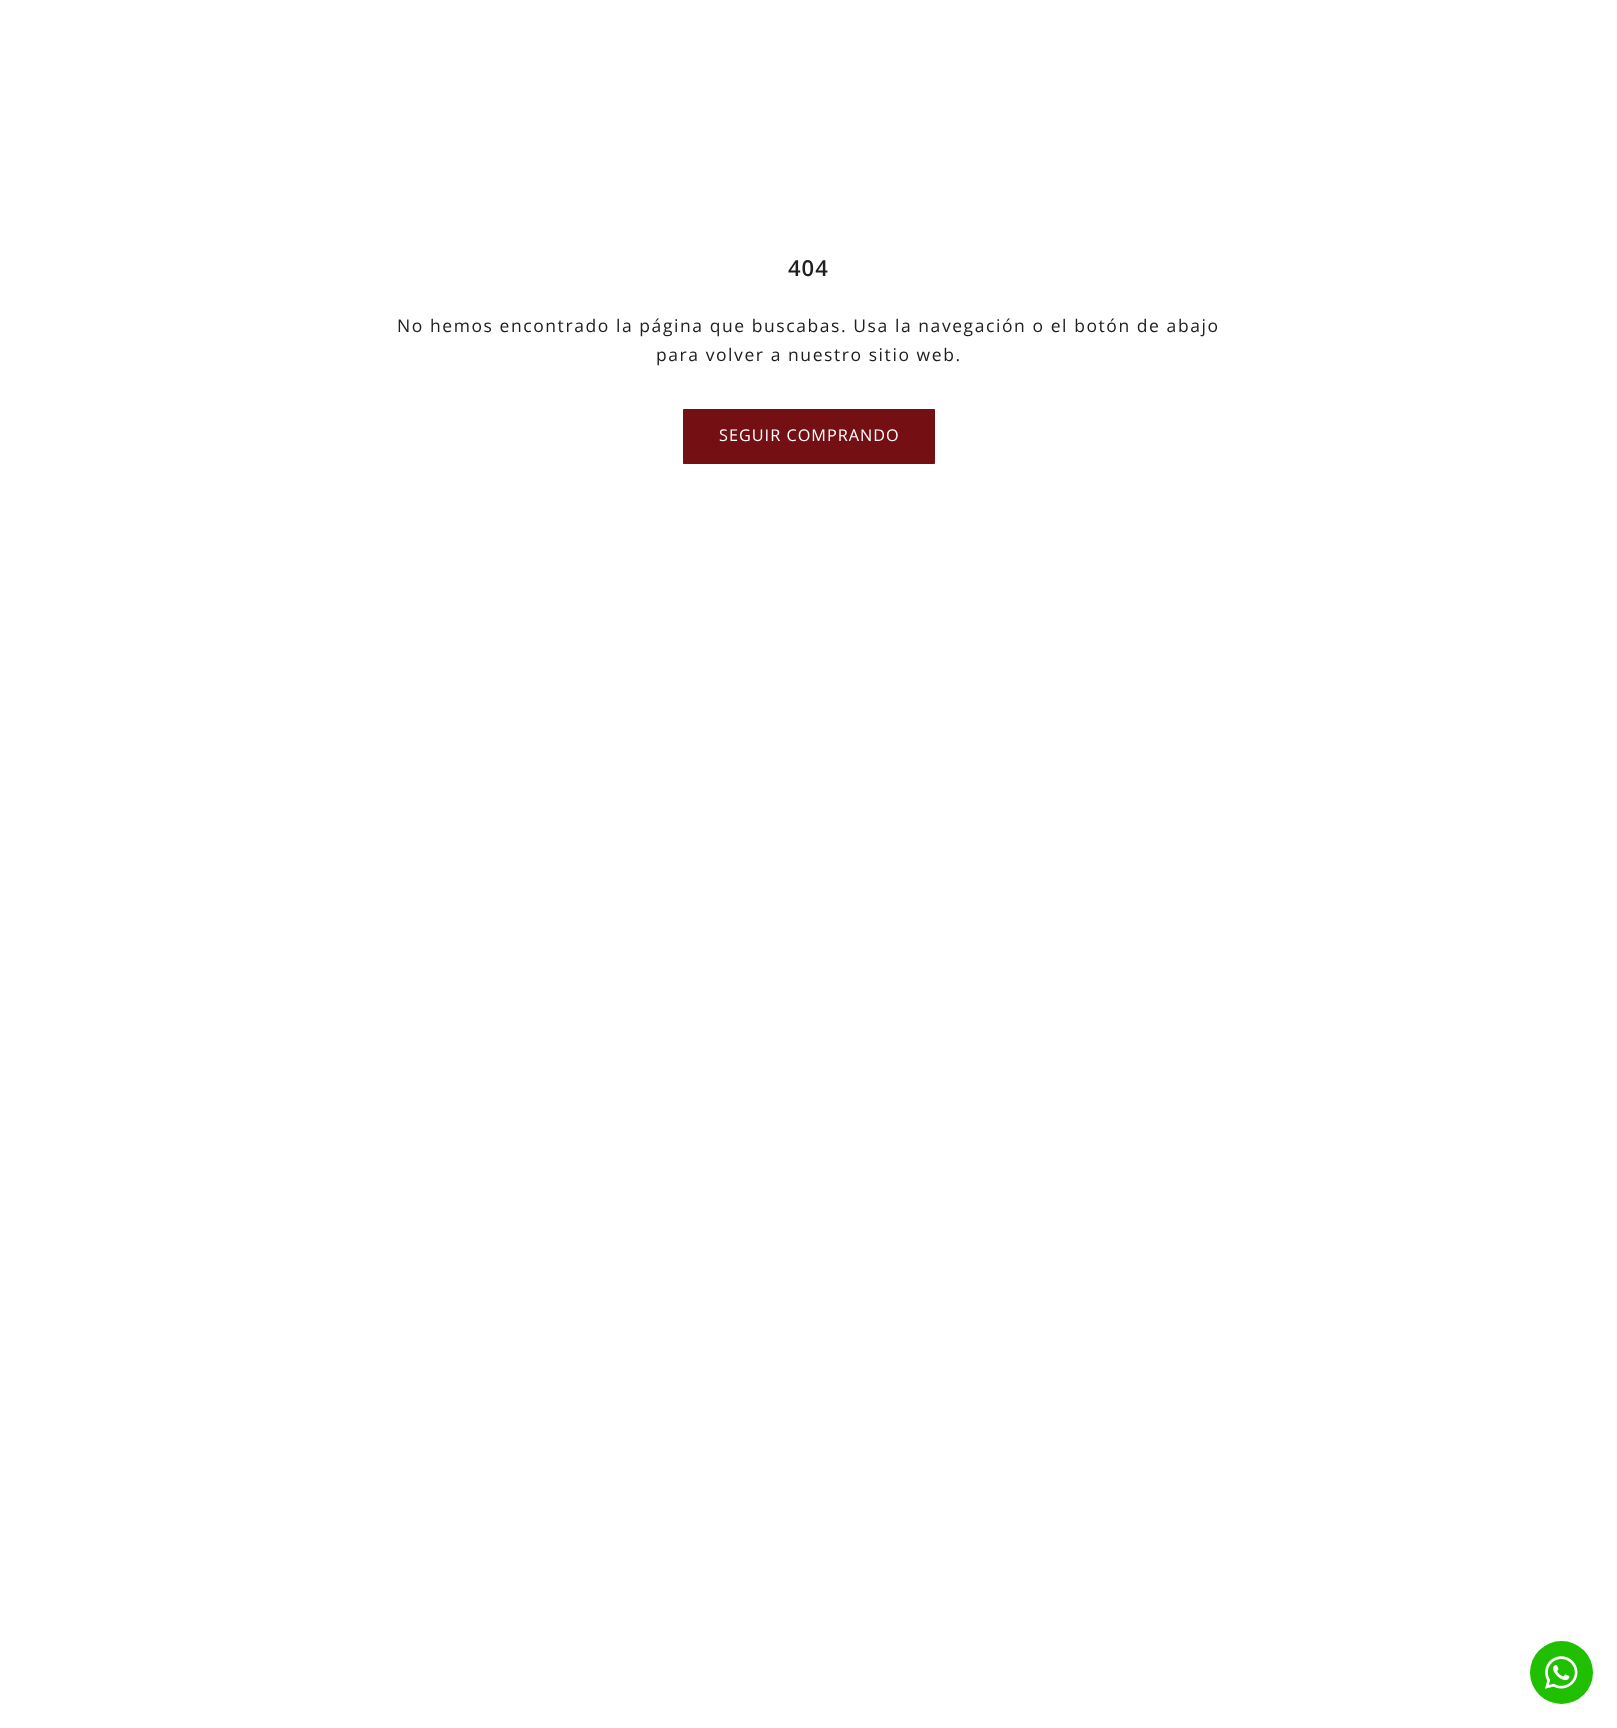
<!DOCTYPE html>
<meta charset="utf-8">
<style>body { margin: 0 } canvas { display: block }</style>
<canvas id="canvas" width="1617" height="1728"></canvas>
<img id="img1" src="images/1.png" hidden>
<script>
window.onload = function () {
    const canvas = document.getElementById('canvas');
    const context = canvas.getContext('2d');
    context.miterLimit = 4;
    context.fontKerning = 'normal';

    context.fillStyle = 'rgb(255, 255, 255)';
    context.fillRect(0, 0, 1617, 1728);
    context.fillStyle = 'rgb(116, 16, 19)';
    context.beginPath();
    context.rect(683.5, 409.5, 251, 54);
    context.fill();
    context.strokeStyle = 'rgb(116, 16, 19)';
    context.stroke();
    context.fillStyle = 'rgb(32, 191, 0)';
    context.beginPath();
    context.arc(1561.5, 1672.5, 31.5, 0, 2 * Math.PI);
    context.fill();
    context.drawImage(document.getElementById('img1'), 1545, 1656, 33, 33);
    context.letterSpacing = '1px';
    context.font = '600 22px Open Sans';
    context.fillStyle = 'rgb(32, 32, 32)';
    context.fillText('404', 788, 276);
    context.letterSpacing = '1.57px';
    context.font = '17.5px Open Sans';
    context.fillText('No hemos encontrado la página que buscabas. Usa la navegación o el botón de abajo', 397, 332);
    context.fillText('para volver a nuestro sitio web.', 656, 361);
    context.letterSpacing = '1px';
    context.font = '16.25px Open Sans';
    context.fillStyle = 'rgb(255, 255, 255)';
    context.fillText('SEGUIR COMPRANDO', 719, 441);
};
</script>
